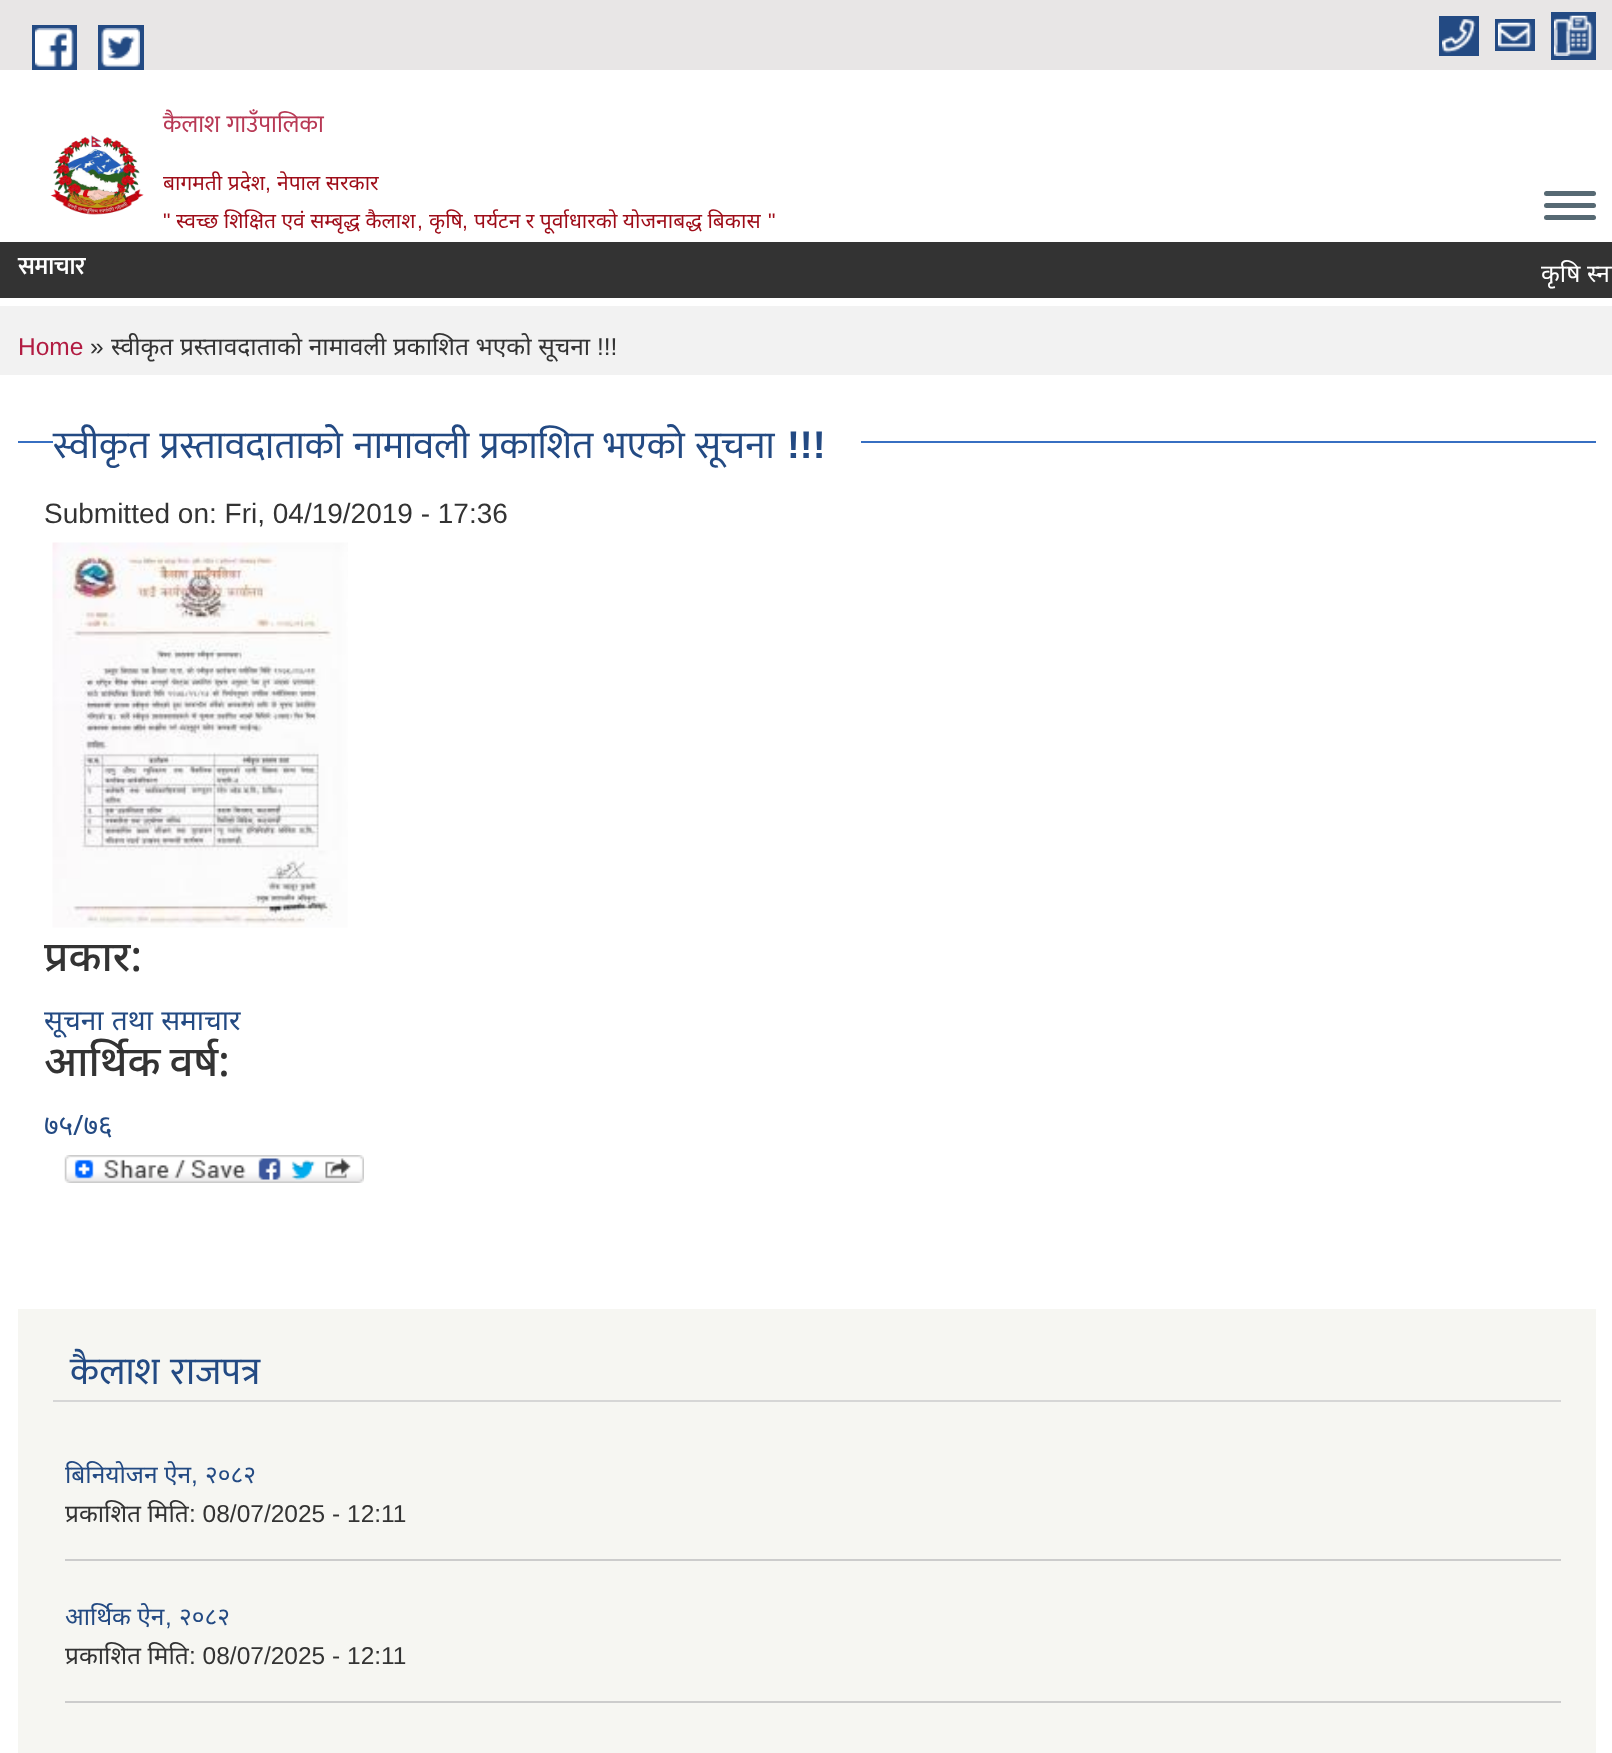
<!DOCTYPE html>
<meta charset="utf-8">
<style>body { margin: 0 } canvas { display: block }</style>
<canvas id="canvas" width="1612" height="1753"></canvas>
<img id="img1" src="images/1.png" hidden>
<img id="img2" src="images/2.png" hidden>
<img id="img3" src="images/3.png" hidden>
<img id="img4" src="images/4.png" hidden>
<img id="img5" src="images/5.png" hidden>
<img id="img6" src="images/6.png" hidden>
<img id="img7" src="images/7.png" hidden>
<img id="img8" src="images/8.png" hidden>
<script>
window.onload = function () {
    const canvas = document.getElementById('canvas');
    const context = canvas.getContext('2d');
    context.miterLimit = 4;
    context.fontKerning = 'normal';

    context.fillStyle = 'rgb(255, 255, 255)';
    context.fillRect(0, 0, 1612, 1753);
    context.fillStyle = 'rgb(232, 230, 230)';
    context.fillRect(0, 0, 1612, 70);
    context.fillStyle = 'rgb(35, 74, 131)';
    context.fillRect(32, 25, 45, 45);
    context.fillRect(98, 25, 46, 45);
    context.drawImage(document.getElementById('img1'), 35, 28, 39, 39);
    context.drawImage(document.getElementById('img2'), 101, 28, 39, 39);
    context.fillRect(1551, 12, 45, 48);
    context.fillRect(1439, 16, 40, 40);
    context.drawImage(document.getElementById('img3'), 1554, 15, 39, 41);
    context.drawImage(document.getElementById('img4'), 1442, 19, 34, 34);
    context.fillRect(1495, 19, 40, 32);
    context.drawImage(document.getElementById('img5'), 1498, 22, 34, 26);
    context.drawImage(document.getElementById('img6'), 50, 135, 94, 80);
    context.fillStyle = 'rgb(86, 105, 115)';
    context.beginPath();
    context.roundRect(1544, 191, 52, 5, 2.5);
    context.fill();
    context.beginPath();
    context.roundRect(1544, 203, 52, 5, 2.5);
    context.fill();
    context.beginPath();
    context.roundRect(1544, 215, 52, 5, 2.5);
    context.fill();
    context.fillStyle = 'rgb(51, 51, 51)';
    context.fillRect(0, 242, 1612, 56);
    context.fillStyle = 'rgb(242, 242, 242)';
    context.fillRect(0, 306, 1612, 69);
    context.fillStyle = 'rgb(55, 111, 194)';
    context.fillRect(18, 441, 1578, 2);
    context.fillStyle = 'rgb(255, 255, 255)';
    context.fillRect(53, 441, 808, 2);
    context.drawImage(document.getElementById('img7'), 52, 542, 296, 386);
    context.drawImage(document.getElementById('img8'), 64, 1155, 300, 28);
    context.fillStyle = 'rgb(246, 246, 242)';
    context.fillRect(18, 1309, 1578, 444);
    context.fillStyle = 'rgb(214, 214, 214)';
    context.fillRect(53, 1400, 1508, 2);
    context.fillStyle = 'rgb(204, 204, 204)';
    context.fillRect(65, 1559, 1496, 2);
    context.fillRect(65, 1701, 1496, 2);
    context.wordSpacing = '1px';
    context.font = '24.5px Mukta';
    context.fillStyle = 'rgb(184, 57, 85)';
    context.fillText('कैलाश गाउँपालिका', 163, 132);
    context.wordSpacing = '0px';
    context.font = '21px Noto Sans';
    context.fillStyle = 'rgb(158, 12, 24)';
    context.fillText('बागमती प्रदेश', 163, 190);
    context.font = '21px Liberation Sans';
    context.fillText(',', 265, 190);
    context.font = '21px Noto Sans';
    context.fillText('नेपाल सरकार', 277, 190);
    context.font = '21px Liberation Sans';
    context.fillText('"', 163, 228);
    context.font = '21px Noto Sans';
    context.fillText('स्वच्छ शिक्षित एवं सम्बृद्ध कैलाश', 176, 228);
    context.fillText('पर्यटन र पूर्वाधारको योजनाबद्ध बिकास', 474, 228);
    context.font = '21px Liberation Sans';
    context.fillText('"', 768, 228);
    context.fillText(',', 417, 228);
    context.font = '21px Noto Sans';
    context.fillText('कृषि', 429, 228);
    context.font = '21px Liberation Sans';
    context.fillText(',', 462, 228);
    context.font = 'bold 24.5px Mukta';
    context.fillStyle = 'rgb(255, 255, 255)';
    context.fillText('समाचार', 18, 274);
    context.font = '24.5px Noto Sans';
    context.fillText('कृषि', 1541, 282);
    context.fillText('स्ना', 1587, 282);
    context.font = '24.5px Liberation Sans';
    context.fillStyle = 'rgb(178, 28, 66)';
    context.fillText('Home', 18, 355);
    context.fillStyle = 'rgb(51, 51, 51)';
    context.fillText('»', 90, 355);
    context.wordSpacing = '0.25px';
    context.font = '24.5px Noto Sans';
    context.fillText('स्वीकृत प्रस्तावदाताको नामावली प्रकाशित भएको सूचना', 111, 355);
    context.wordSpacing = '0px';
    context.font = '24.5px Liberation Sans';
    context.fillText('!!!', 597, 355);
    context.wordSpacing = '1.75px';
    context.font = '38.5px Mukta';
    context.fillStyle = 'rgb(35, 74, 131)';
    context.fillText('स्वीकृत प्रस्तावदाताको नामावली प्रकाशित भएको सूचना', 53, 458);
    context.wordSpacing = '0px';
    context.font = 'bold 38.5px Liberation Sans';
    context.fillText('!!!', 787, 458);
    context.font = '28px Liberation Sans';
    context.fillStyle = 'rgb(51, 51, 51)';
    context.fillText('Submitted on: Fri, 04/19/2019 - 17:36', 44, 523);
    context.font = '500 42px Noto Sans';
    context.fillText('प्रकार:', 44, 971);
    context.wordSpacing = '1px';
    context.font = '28px Noto Sans';
    context.fillStyle = 'rgb(35, 74, 131)';
    context.fillText('सूचना तथा समाचार', 44, 1030);
    context.wordSpacing = '-2px';
    context.font = '500 42px Noto Sans';
    context.fillStyle = 'rgb(51, 51, 51)';
    context.fillText('आर्थिक वर्ष:', 44, 1076);
    context.wordSpacing = '0px';
    context.font = '28px Noto Sans';
    context.fillStyle = 'rgb(35, 74, 131)';
    context.fillText('७५/७६', 44, 1135);
    context.wordSpacing = '2px';
    context.font = '38.5px Mukta';
    context.fillText('कैलाश राजपत्र', 70, 1384);
    context.wordSpacing = '0px';
    context.font = '24.5px Noto Sans';
    context.fillText('बिनियोजन ऐन', 65, 1483);
    context.font = '24.5px Liberation Sans';
    context.fillText(',', 191, 1483);
    context.font = '24.5px Noto Sans';
    context.fillText('२०८२', 205, 1483);
    context.fillStyle = 'rgb(51, 51, 51)';
    context.fillText('प्रकाशित मिति', 65, 1522);
    context.font = '24.5px Liberation Sans';
    context.fillText(': 08/07/2025 - 12:11', 189, 1522);
    context.font = '24.5px Noto Sans';
    context.fillStyle = 'rgb(35, 74, 131)';
    context.fillText('आर्थिक ऐन', 65, 1625);
    context.font = '24.5px Liberation Sans';
    context.fillText(',', 165, 1625);
    context.font = '24.5px Noto Sans';
    context.fillText('२०८२', 179, 1625);
    context.fillStyle = 'rgb(51, 51, 51)';
    context.fillText('प्रकाशित मिति', 65, 1664);
    context.font = '24.5px Liberation Sans';
    context.fillText(': 08/07/2025 - 12:11', 189, 1664);
};
</script>
